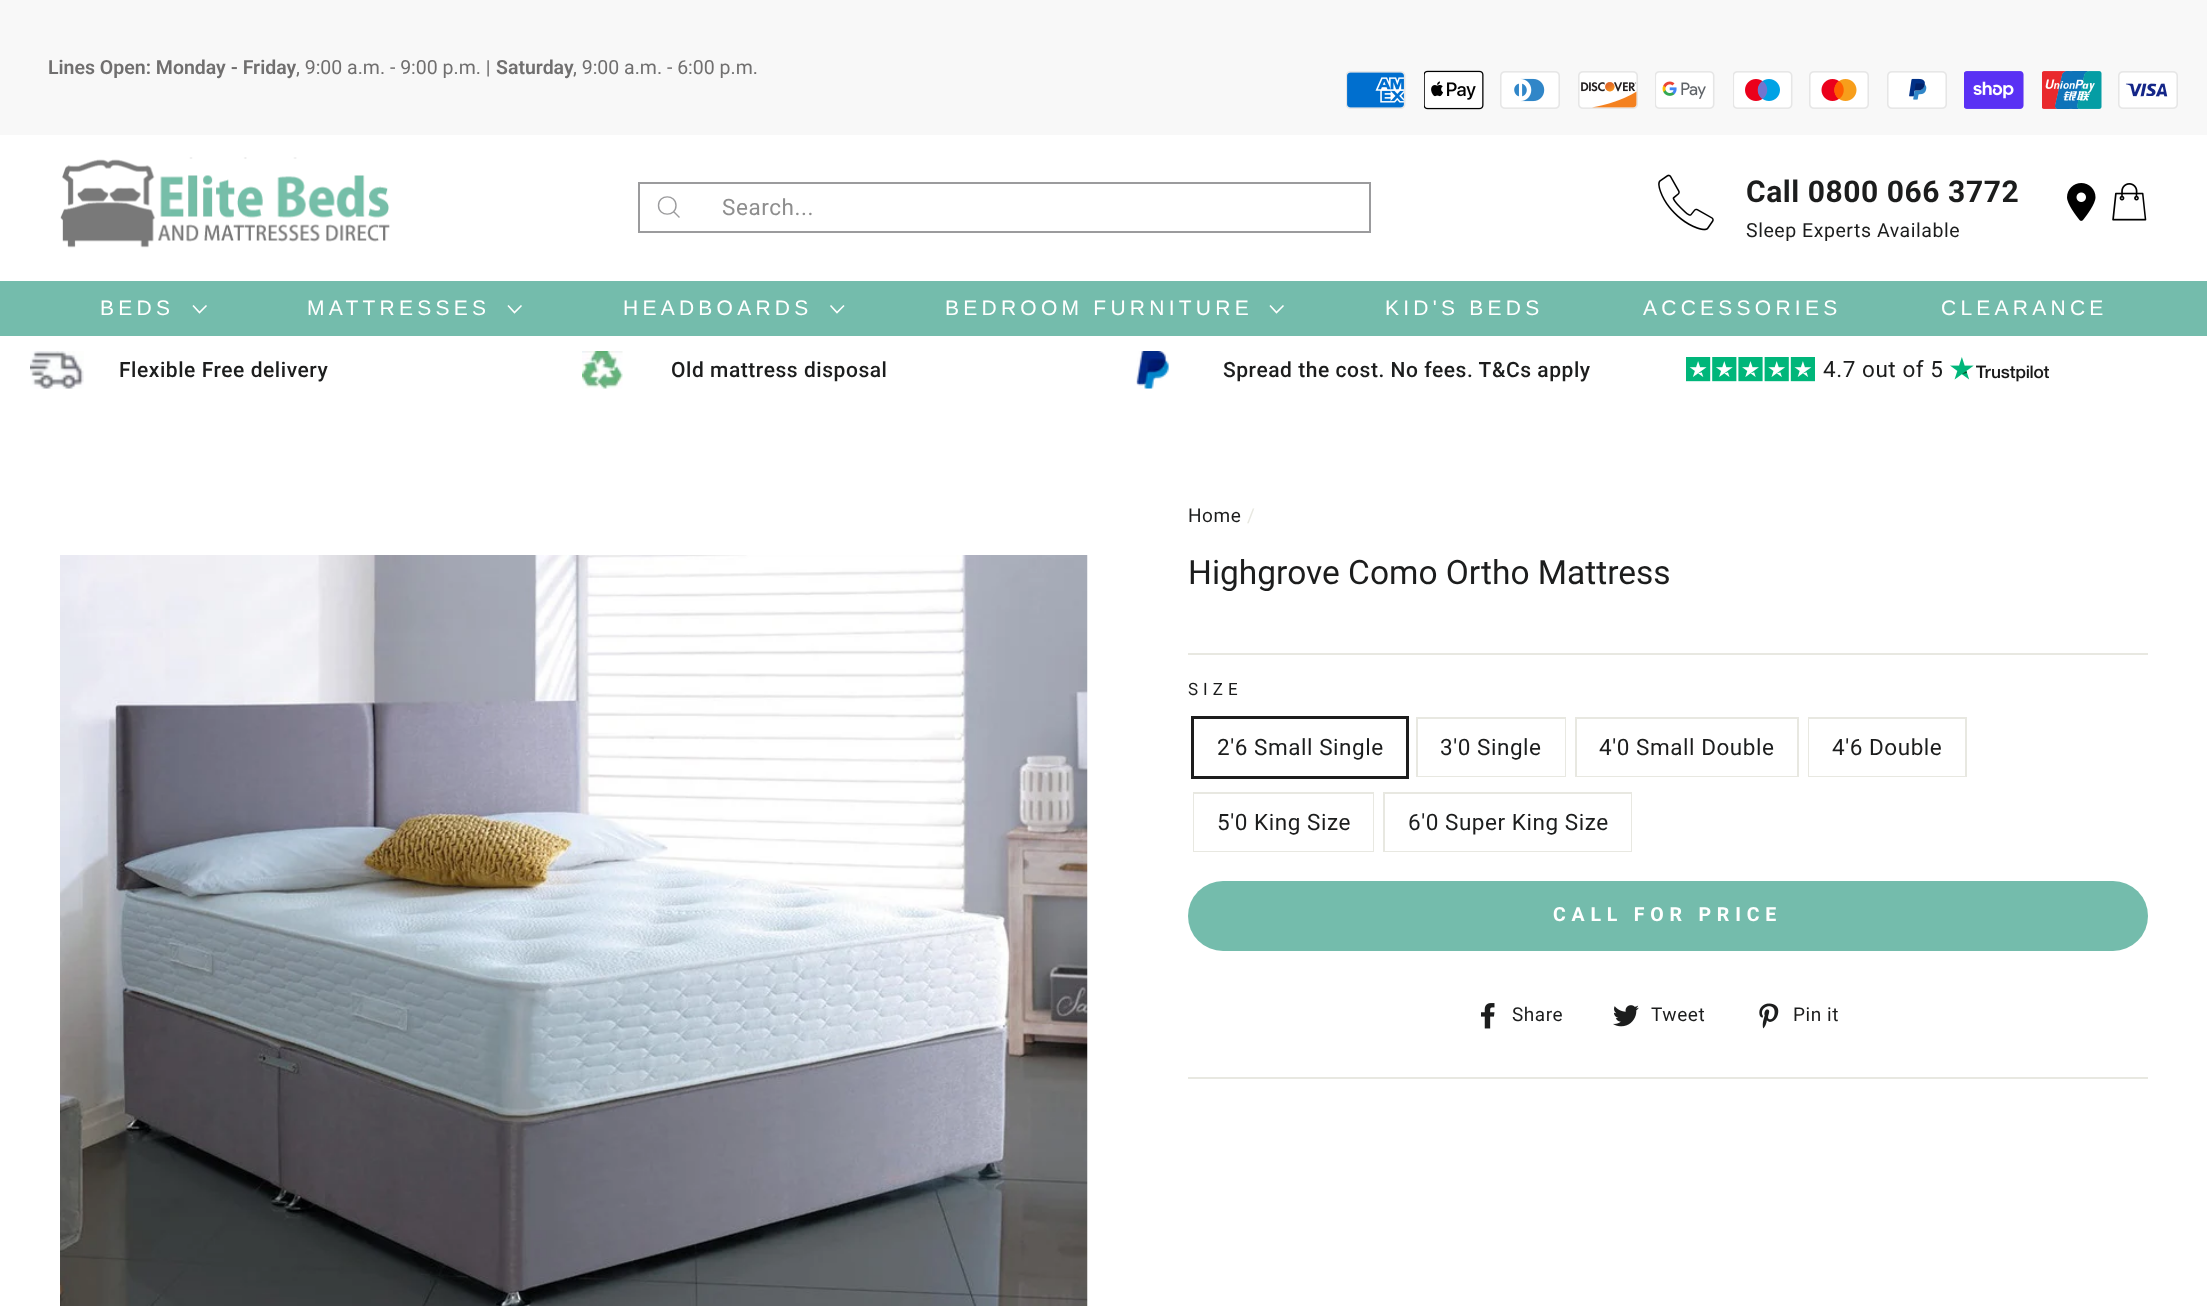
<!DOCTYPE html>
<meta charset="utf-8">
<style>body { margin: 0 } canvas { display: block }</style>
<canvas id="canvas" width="2207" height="1306"></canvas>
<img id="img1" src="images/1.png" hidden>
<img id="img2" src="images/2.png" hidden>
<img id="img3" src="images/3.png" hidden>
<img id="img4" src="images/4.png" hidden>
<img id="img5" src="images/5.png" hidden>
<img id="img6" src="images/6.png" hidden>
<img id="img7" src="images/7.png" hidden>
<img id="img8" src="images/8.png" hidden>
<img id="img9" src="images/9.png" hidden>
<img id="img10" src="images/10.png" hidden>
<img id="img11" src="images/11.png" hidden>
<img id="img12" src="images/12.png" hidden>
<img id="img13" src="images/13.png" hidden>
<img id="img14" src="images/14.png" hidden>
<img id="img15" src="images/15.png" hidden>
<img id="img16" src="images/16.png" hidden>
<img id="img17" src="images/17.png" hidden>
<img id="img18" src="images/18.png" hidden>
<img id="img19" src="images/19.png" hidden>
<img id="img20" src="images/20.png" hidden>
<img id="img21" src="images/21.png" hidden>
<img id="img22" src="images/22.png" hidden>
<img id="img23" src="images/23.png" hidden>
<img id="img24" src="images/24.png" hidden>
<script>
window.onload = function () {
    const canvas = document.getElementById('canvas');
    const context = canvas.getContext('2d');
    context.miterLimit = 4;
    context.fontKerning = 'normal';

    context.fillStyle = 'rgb(255, 255, 255)';
    context.fillRect(0, 0, 2207, 1306);
    context.fillStyle = 'rgb(248, 248, 248)';
    context.fillRect(0, 0, 2207, 135);
    context.drawImage(document.getElementById('img1'), 1346, 71, 60, 38);
    context.drawImage(document.getElementById('img2'), 1424, 70, 60, 40);
    context.drawImage(document.getElementById('img3'), 1500, 71, 60, 38);
    context.drawImage(document.getElementById('img4'), 1578, 71, 60, 38);
    context.drawImage(document.getElementById('img5'), 1655, 71, 60, 38);
    context.drawImage(document.getElementById('img6'), 1733, 71, 60, 38);
    context.drawImage(document.getElementById('img7'), 1809, 71, 60, 38);
    context.drawImage(document.getElementById('img8'), 1887, 71, 60, 38);
    context.drawImage(document.getElementById('img9'), 1964, 71, 60, 38);
    context.drawImage(document.getElementById('img10'), 2042, 71, 60, 38);
    context.drawImage(document.getElementById('img11'), 2118, 71, 60, 38);
    context.drawImage(document.getElementById('img12'), 60, 157, 330, 91);
    context.strokeStyle = 'rgb(155, 155, 157)';
    context.lineWidth = 2;
    context.strokeRect(639, 183, 731, 49);
    context.beginPath();
    context.moveTo(676, 205.5);
    context.bezierCurveTo(676, 217, 658.5, 217, 658.5, 205.5);
    context.bezierCurveTo(658.5, 194, 676, 194, 676, 205.5);
    context.closePath();
    context.moveTo(679.5, 217.5);
    context.lineTo(673.5, 211.5);
    context.lineWidth = 1.4;
    context.stroke();
    context.drawImage(document.getElementById('img13'), 1658, 174, 56, 57);
    context.drawImage(document.getElementById('img14'), 2067, 183, 29, 38);
    context.drawImage(document.getElementById('img15'), 2112, 183, 35, 38);
    context.fillStyle = 'rgb(116, 188, 172)';
    context.fillRect(0, 281, 2207, 55);
    context.beginPath();
    context.moveTo(193, 305.5);
    context.lineTo(199.5, 312.5);
    context.lineTo(206.5, 305.5);
    context.strokeStyle = 'rgb(255, 255, 255)';
    context.lineWidth = 1.6;
    context.stroke();
    context.beginPath();
    context.moveTo(508, 305.5);
    context.lineTo(514.5, 312.5);
    context.lineTo(521.5, 305.5);
    context.stroke();
    context.beginPath();
    context.moveTo(830.5, 305.5);
    context.lineTo(837, 312.5);
    context.lineTo(844, 305.5);
    context.stroke();
    context.beginPath();
    context.moveTo(1270, 305.5);
    context.lineTo(1276.5, 312.5);
    context.lineTo(1283.5, 305.5);
    context.stroke();
    context.drawImage(document.getElementById('img16'), 30, 351, 54, 38);
    context.drawImage(document.getElementById('img17'), 582, 351, 41, 38);
    context.drawImage(document.getElementById('img18'), 1136, 351, 33, 38);
    context.drawImage(document.getElementById('img19'), 1686, 357, 129, 25);
    context.drawImage(document.getElementById('img20'), 1950, 357, 99, 25);
    context.drawImage(document.getElementById('img21'), 60, 555, 1028, 751);
    context.fillStyle = 'rgb(232, 232, 225)';
    context.fillRect(1188, 653, 960, 2);
    context.strokeStyle = 'rgb(28, 29, 29)';
    context.lineWidth = 3;
    context.strokeRect(1192.5, 717.5, 215, 60);
    context.strokeStyle = 'rgb(232, 232, 225)';
    context.lineWidth = 2;
    context.strokeRect(1417, 718, 148, 58);
    context.fillStyle = 'rgb(255, 255, 255)';
    context.fillRect(1418, 719, 147, 57);
    context.strokeRect(1576, 718, 222, 58);
    context.fillRect(1577, 775, 220, 1);
    context.strokeRect(1809, 718, 157, 58);
    context.fillRect(1809, 719, 156, 57);
    context.strokeRect(1194, 793, 179, 58);
    context.fillRect(1194, 794, 179, 57);
    context.strokeRect(1384, 793, 247, 58);
    context.fillRect(1385, 794, 246, 57);
    context.fillStyle = 'rgb(116, 188, 172)';
    context.beginPath();
    context.roundRect(1188, 881, 960, 70, 35);
    context.fill();
    context.drawImage(document.getElementById('img22'), 1481, 1003, 14, 26);
    context.drawImage(document.getElementById('img23'), 1613, 1005, 26, 22);
    context.drawImage(document.getElementById('img24'), 1759, 1003, 20, 26);
    context.fillStyle = 'rgb(232, 232, 225)';
    context.fillRect(1188, 1077, 960, 2);
    context.font = '600 19.5px Roboto';
    context.fillStyle = 'rgb(112, 111, 111)';
    context.fillText('Lines Open: Monday - Friday', 48, 74);
    context.font = '19.5px Roboto';
    context.fillText(', 9:00 a.m. - 9:00 p.m. |', 296, 74);
    context.font = '600 19.5px Roboto';
    context.fillText('Saturday', 496, 74);
    context.font = '19.5px Roboto';
    context.fillText(', 9:00 a.m. - 6:00 p.m.', 573, 74);
    context.letterSpacing = '0.55px';
    context.font = '22.5px Roboto';
    context.fillStyle = 'rgb(142, 142, 142)';
    context.fillText('Search...', 722, 215);
    context.font = 'bold 30px Roboto';
    context.fillStyle = 'rgb(28, 29, 29)';
    context.fillText('Call 0800 066 3772', 1746, 202);
    context.font = '19.5px Roboto';
    context.fillText('Sleep Experts Available', 1746, 237);
    context.letterSpacing = '4.25px';
    context.font = '21px Liberation Sans';
    context.fillStyle = 'rgb(255, 255, 255)';
    context.fillText('BEDS', 100, 315);
    context.fillText('MATTRESSES', 307, 315);
    context.fillText('HEADBOARDS', 623, 315);
    context.fillText('BEDROOM FURNITURE', 945, 315);
    context.fillText('KID\'S BEDS', 1385, 315);
    context.fillText('ACCESSORIES', 1643, 315);
    context.fillText('CLEARANCE', 1941, 315);
    context.letterSpacing = '0.55px';
    context.font = '500 21px Roboto';
    context.fillStyle = 'rgb(28, 29, 29)';
    context.fillText('Flexible Free delivery', 119, 377);
    context.fillText('Old mattress disposal', 671, 377);
    context.fillText('Spread the cost. No fees. T&Cs apply', 1223, 377);
    context.font = '22.5px Roboto';
    context.fillText('4.7 out of 5', 1823, 377);
    context.font = '19px Roboto';
    context.fillText('Home', 1188, 522);
    context.fillStyle = 'rgb(232, 232, 225)';
    context.fillText('/', 1247, 522);
    context.letterSpacing = '0px';
    context.font = '33.5px Roboto';
    context.fillStyle = 'rgb(28, 29, 29)';
    context.fillText('Highgrove Como Ortho Mattress', 1188, 584);
    context.letterSpacing = '5px';
    context.font = '17px Roboto';
    context.fillText('SIZE', 1188, 695);
    context.letterSpacing = '0.55px';
    context.font = '22.5px Roboto';
    context.fillText('2\'6 Small Single', 1217, 755);
    context.fillText('3\'0 Single', 1440, 755);
    context.fillText('4\'0 Small Double', 1599, 755);
    context.fillText('4\'6 Double', 1832, 755);
    context.fillText('5\'0 King Size', 1217, 830);
    context.fillText('6\'0 Super King Size', 1408, 830);
    context.letterSpacing = '5.8px';
    context.font = 'bold 19.5px Roboto';
    context.fillStyle = 'rgb(255, 255, 255)';
    context.fillText('CALL FOR PRICE', 1553, 921);
    context.letterSpacing = '0.55px';
    context.font = '19px Roboto';
    context.fillStyle = 'rgb(28, 29, 29)';
    context.fillText('Share', 1512, 1021);
    context.fillText('Tweet', 1651, 1021);
    context.fillText('Pin it', 1793, 1021);
};
</script>
